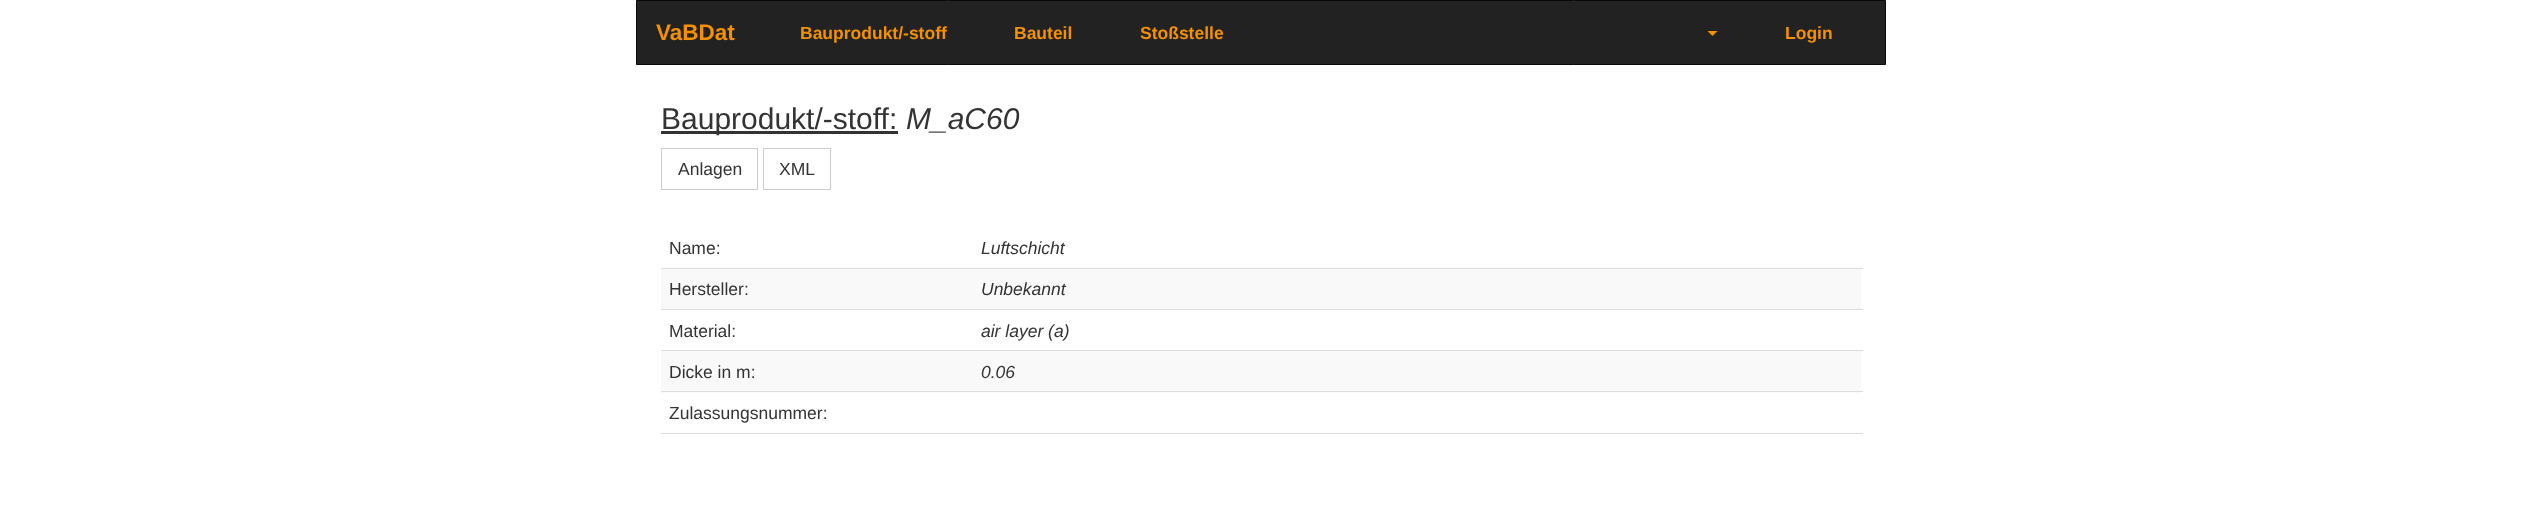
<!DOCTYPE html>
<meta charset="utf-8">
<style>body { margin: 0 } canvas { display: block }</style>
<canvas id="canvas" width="2522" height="511"></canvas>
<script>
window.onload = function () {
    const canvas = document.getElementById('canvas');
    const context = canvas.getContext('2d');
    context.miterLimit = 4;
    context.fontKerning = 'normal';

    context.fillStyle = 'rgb(255, 255, 255)';
    context.fillRect(0, 0, 2522, 511);
    context.fillStyle = 'rgb(34, 34, 34)';
    context.beginPath();
    context.rect(636.5, 0.5, 1249, 64);
    context.fill();
    context.strokeStyle = 'rgb(8, 8, 8)';
    context.stroke();
    context.fillStyle = 'rgb(243, 145, 0)';
    context.beginPath();
    context.moveTo(1707.5, 31);
    context.lineTo(1717.5, 31);
    context.lineTo(1712.5, 36);
    context.closePath();
    context.fill();
    context.fillStyle = 'rgb(51, 51, 51)';
    context.fillRect(661, 131, 237, 3);
    context.strokeStyle = 'rgb(204, 204, 204)';
    context.strokeRect(661.5, 148.5, 96, 41);
    context.strokeRect(763.5, 148.5, 67, 41);
    context.fillStyle = 'rgb(221, 221, 221)';
    context.fillRect(661, 268, 1202, 1);
    context.fillStyle = 'rgb(249, 249, 249)';
    context.fillRect(661, 269, 1200, 40);
    context.fillStyle = 'rgb(221, 221, 221)';
    context.fillRect(661, 309, 1202, 1);
    context.fillRect(661, 350, 1202, 1);
    context.fillStyle = 'rgb(249, 249, 249)';
    context.fillRect(661, 351, 1200, 42);
    context.fillStyle = 'rgb(221, 221, 221)';
    context.fillRect(661, 391, 1202, 1);
    context.fillRect(661, 433, 1202, 1);
    context.font = 'bold 22.5px Liberation Sans';
    context.fillStyle = 'rgb(243, 145, 0)';
    context.fillText('VaBDat', 656, 40);
    context.font = 'bold 17.5px Liberation Sans';
    context.fillText('Bauprodukt/-stoff', 800, 39);
    context.fillText('Bauteil', 1014, 39);
    context.fillText('Stoßstelle', 1140, 39);
    context.fillText('Login', 1785, 39);
    context.font = '30px Liberation Sans';
    context.fillStyle = 'rgb(51, 51, 51)';
    context.fillText('Bauprodukt/-stoff:', 661, 129);
    context.font = 'italic 30px Liberation Sans';
    context.fillText('M_aC60', 906, 129);
    context.font = '17.5px Liberation Sans';
    context.fillText('Anlagen', 678, 175);
    context.fillText('XML', 779, 175);
    context.fillText('Name:', 669, 254);
    context.font = 'italic 17.5px Liberation Sans';
    context.fillText('Luftschicht', 981, 254);
    context.font = '17.5px Liberation Sans';
    context.fillText('Hersteller:', 669, 295);
    context.font = 'italic 17.5px Liberation Sans';
    context.fillText('Unbekannt', 981, 295);
    context.font = '17.5px Liberation Sans';
    context.fillText('Material:', 669, 337);
    context.font = 'italic 17.5px Liberation Sans';
    context.fillText('air layer (a)', 981, 337);
    context.font = '17.5px Liberation Sans';
    context.fillText('Dicke in m:', 669, 378);
    context.font = 'italic 17.5px Liberation Sans';
    context.fillText('0.06', 981, 378);
    context.font = '17.5px Liberation Sans';
    context.fillText('Zulassungsnummer:', 669, 419);
};
</script>
